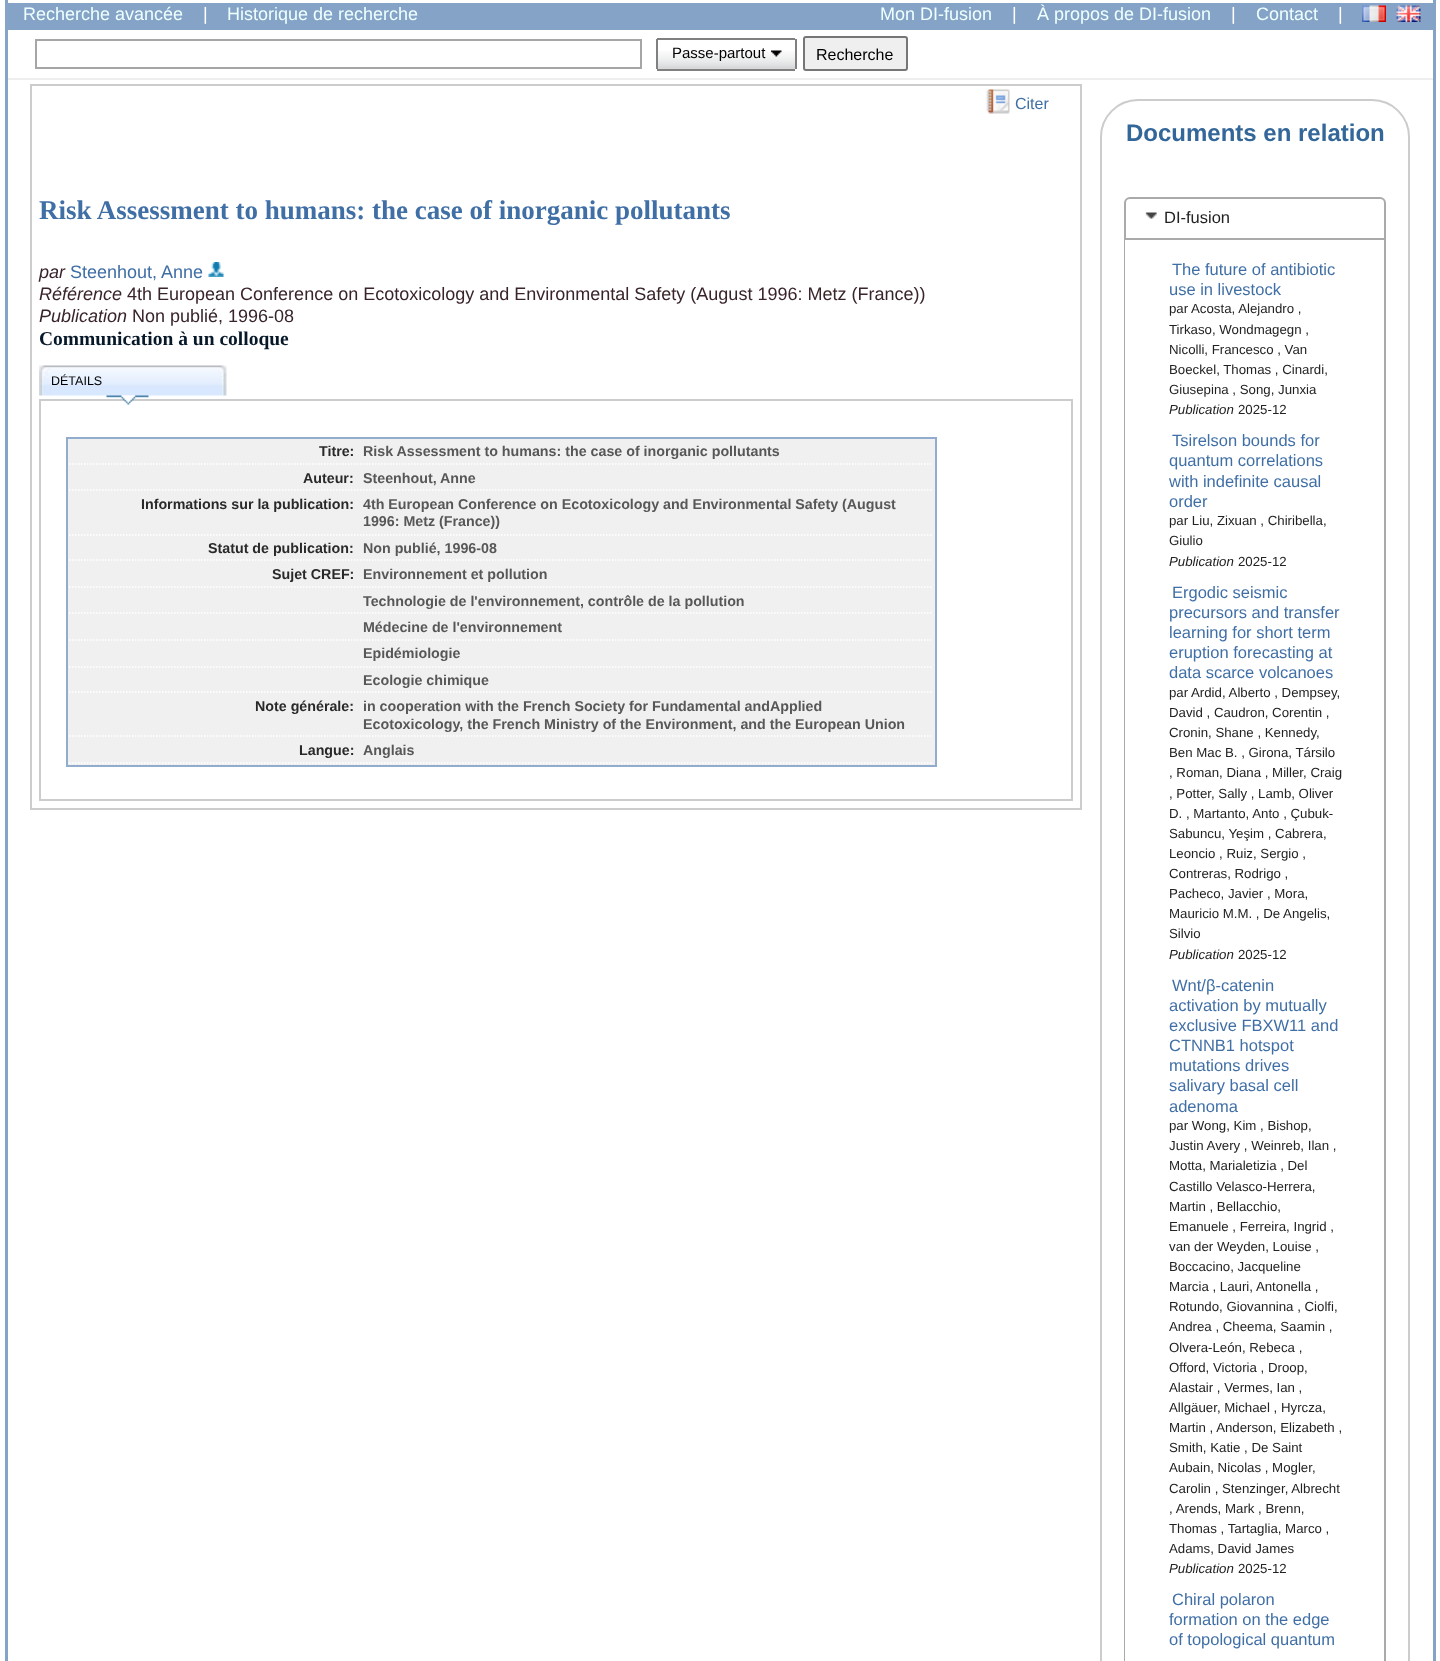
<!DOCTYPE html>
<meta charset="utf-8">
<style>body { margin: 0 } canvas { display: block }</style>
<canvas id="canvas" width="1440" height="1661"></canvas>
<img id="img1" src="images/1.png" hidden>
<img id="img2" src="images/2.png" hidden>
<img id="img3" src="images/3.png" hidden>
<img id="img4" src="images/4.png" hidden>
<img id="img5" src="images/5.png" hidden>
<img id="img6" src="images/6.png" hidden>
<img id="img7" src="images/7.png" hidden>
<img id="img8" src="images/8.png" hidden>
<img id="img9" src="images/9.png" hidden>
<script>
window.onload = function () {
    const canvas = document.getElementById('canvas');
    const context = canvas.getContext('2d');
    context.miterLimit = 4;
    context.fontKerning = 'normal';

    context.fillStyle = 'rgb(255, 255, 255)';
    context.fillRect(0, 0, 1440, 1661);
    context.fillStyle = 'rgb(133, 163, 198)';
    context.fillRect(5, 0, 1431, 1661);
    context.fillStyle = 'rgb(255, 255, 255)';
    context.fillRect(8, 0, 1425, 1661);
    context.fillStyle = 'rgb(133, 163, 198)';
    context.fillRect(8, 3, 1425, 27);
    context.drawImage(document.getElementById('img1'), 1362, 5, 24, 17);
    context.drawImage(document.getElementById('img2'), 1396, 5, 25, 17);
    context.strokeStyle = 'rgb(166, 166, 166)';
    context.lineWidth = 2;
    context.strokeRect(36, 40, 605, 28);
    context.drawImage(document.getElementById('img3'), 658, 51, 137, 18);
    context.fillStyle = 'rgb(128, 128, 128)';
    context.fillRect(657, 38, 138, 2);
    context.fillRect(657, 69, 138, 2);
    context.fillRect(795, 39, 2, 30);
    context.fillRect(656, 39, 2, 30);
    context.drawImage(document.getElementById('img4'), 771, 50, 11, 7);
    context.fillStyle = 'rgb(239, 239, 239)';
    context.beginPath();
    context.roundRect(804, 37, 103, 33, 2);
    context.fill();
    context.strokeStyle = 'rgb(118, 118, 118)';
    context.stroke();
    context.fillStyle = 'rgb(238, 238, 238)';
    context.fillRect(8, 78, 1425, 2);
    context.strokeStyle = 'rgb(204, 204, 204)';
    context.strokeRect(31, 85, 1050, 724);
    context.drawImage(document.getElementById('img5'), 985, 89, 25, 25);
    context.drawImage(document.getElementById('img6'), 208, 262, 16, 15);
    context.drawImage(document.getElementById('img7'), 39, 365, 188, 31);
    context.strokeRect(40, 400, 1032, 400);
    context.drawImage(document.getElementById('img8'), 106, 395, 43, 10);
    context.fillStyle = 'rgb(240, 240, 240)';
    context.fillRect(68, 439, 867, 326);
    context.fillStyle = 'rgb(145, 172, 204)';
    context.fillRect(66, 437, 870, 2);
    context.fillRect(935, 437, 2, 330);
    context.fillRect(66, 765, 870, 2);
    context.fillRect(66, 437, 2, 330);
    context.beginPath();
    context.moveTo(69, 464);
    context.lineTo(933, 464);
    context.strokeStyle = 'rgb(255, 255, 255)';
    context.lineWidth = 1.5;
    context.setLineDash([1.5, 1.5]);
    context.stroke();
    context.beginPath();
    context.moveTo(69, 490);
    context.lineTo(933, 490);
    context.stroke();
    context.beginPath();
    context.moveTo(69, 535);
    context.lineTo(933, 535);
    context.stroke();
    context.beginPath();
    context.moveTo(69, 560);
    context.lineTo(933, 560);
    context.stroke();
    context.beginPath();
    context.moveTo(69, 587);
    context.lineTo(933, 587);
    context.stroke();
    context.beginPath();
    context.moveTo(69, 613);
    context.lineTo(933, 613);
    context.stroke();
    context.beginPath();
    context.moveTo(69, 640);
    context.lineTo(933, 640);
    context.stroke();
    context.beginPath();
    context.moveTo(69, 667);
    context.lineTo(933, 667);
    context.stroke();
    context.beginPath();
    context.moveTo(69, 692);
    context.lineTo(933, 692);
    context.stroke();
    context.beginPath();
    context.moveTo(69, 736);
    context.lineTo(933, 736);
    context.stroke();
    context.beginPath();
    context.moveTo(69, 763);
    context.lineTo(933, 763);
    context.stroke();
    context.beginPath();
    context.roundRect(1101, 100, 308, 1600, 37);
    context.strokeStyle = 'rgb(204, 204, 204)';
    context.lineWidth = 2;
    context.setLineDash([]);
    context.stroke();
    context.beginPath();
    context.roundRect(1125, 198, 260, 41, [5, 5, 0, 0]);
    context.strokeStyle = 'rgb(170, 170, 170)';
    context.stroke();
    context.drawImage(document.getElementById('img9'), 1145, 212, 12, 7);
    context.fillStyle = 'rgb(170, 170, 170)';
    context.beginPath();
    context.moveTo(1124, 240);
    context.lineTo(1386, 240);
    context.lineTo(1386, 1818);
    context.bezierCurveTo(1386, 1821, 1383, 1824, 1380, 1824);
    context.lineTo(1130, 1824);
    context.bezierCurveTo(1126, 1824, 1124, 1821, 1124, 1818);
    context.closePath();
    context.moveTo(1125, 240);
    context.lineTo(1384, 240);
    context.lineTo(1384, 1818);
    context.bezierCurveTo(1384, 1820, 1382, 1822, 1380, 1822);
    context.lineTo(1130, 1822);
    context.bezierCurveTo(1127, 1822, 1125, 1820, 1125, 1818);
    context.closePath();
    context.fill('evenodd');
    context.font = '18px Liberation Sans';
    context.fillStyle = 'rgb(238, 255, 255)';
    context.fillText('Recherche avancée', 23, 20);
    context.fillStyle = 'rgb(255, 255, 255)';
    context.fillText('|', 203, 20);
    context.fillStyle = 'rgb(238, 255, 255)';
    context.fillText('Historique de recherche', 227, 20);
    context.fillText('Mon DI-fusion', 880, 20);
    context.fillStyle = 'rgb(255, 255, 255)';
    context.fillText('|', 1012, 20);
    context.fillStyle = 'rgb(238, 255, 255)';
    context.fillText('À propos de DI-fusion', 1037, 20);
    context.fillStyle = 'rgb(255, 255, 255)';
    context.fillText('|', 1231, 20);
    context.fillStyle = 'rgb(238, 255, 255)';
    context.fillText('Contact', 1256, 20);
    context.fillStyle = 'rgb(255, 255, 255)';
    context.fillText('|', 1338, 20);
    context.font = '15px Liberation Sans';
    context.fillStyle = 'rgb(0, 0, 0)';
    context.fillText('Passe-partout', 672, 58);
    context.font = '16px Liberation Sans';
    context.fillText('Recherche', 816, 60);
    context.fillStyle = 'rgb(64, 111, 166)';
    context.fillText('Citer', 1015, 109);
    context.font = 'bold 27px Liberation Serif';
    context.fillText('Risk Assessment to humans: the case of inorganic pollutants', 39, 219);
    context.font = 'italic 18px Liberation Sans';
    context.fillStyle = 'rgb(57, 37, 41)';
    context.fillText('par', 39, 278);
    context.font = '18px Liberation Sans';
    context.fillStyle = 'rgb(64, 111, 166)';
    context.fillText('Steenhout, Anne', 70, 278);
    context.font = 'italic 18px Liberation Sans';
    context.fillStyle = 'rgb(57, 37, 41)';
    context.fillText('Référence', 39, 300);
    context.font = '18px Liberation Sans';
    context.fillText('4th European Conference on Ecotoxicology and Environmental Safety (August 1996: Metz (France))', 127, 300);
    context.font = 'italic 18px Liberation Sans';
    context.fillText('Publication', 39, 322);
    context.font = '18px Liberation Sans';
    context.fillText('Non publié, 1996-08', 132, 322);
    context.font = 'bold 19.5px Liberation Serif';
    context.fillStyle = 'rgb(7, 24, 41)';
    context.fillText('Communication à un colloque', 39, 345);
    context.font = '12.5px Liberation Sans';
    context.fillStyle = 'rgb(0, 0, 0)';
    context.fillText('DÉTAILS', 51, 385);
    context.font = 'bold 14.25px Liberation Sans';
    context.fillStyle = 'rgb(41, 41, 41)';
    context.fillText('Titre:', 319, 456);
    context.fillStyle = 'rgb(87, 87, 87)';
    context.fillText('Risk Assessment to humans: the case of inorganic pollutants', 363, 456);
    context.fillStyle = 'rgb(41, 41, 41)';
    context.fillText('Auteur:', 303, 483);
    context.fillStyle = 'rgb(87, 87, 87)';
    context.fillText('Steenhout, Anne', 363, 483);
    context.fillStyle = 'rgb(41, 41, 41)';
    context.fillText('Informations sur la publication:', 141, 509);
    context.fillStyle = 'rgb(87, 87, 87)';
    context.fillText('4th European Conference on Ecotoxicology and Environmental Safety (August', 363, 509);
    context.fillText('1996: Metz (France))', 363, 526);
    context.fillStyle = 'rgb(41, 41, 41)';
    context.fillText('Statut de publication:', 208, 553);
    context.fillStyle = 'rgb(87, 87, 87)';
    context.fillText('Non publié, 1996-08', 363, 553);
    context.fillStyle = 'rgb(41, 41, 41)';
    context.fillText('Sujet CREF:', 272, 579);
    context.fillStyle = 'rgb(87, 87, 87)';
    context.fillText('Environnement et pollution', 363, 579);
    context.fillText('Technologie de l\'environnement, contrôle de la pollution', 363, 606);
    context.fillText('Médecine de l\'environnement', 363, 632);
    context.fillText('Epidémiologie', 363, 658);
    context.fillText('Ecologie chimique', 363, 685);
    context.fillStyle = 'rgb(41, 41, 41)';
    context.fillText('Note générale:', 255, 711);
    context.fillStyle = 'rgb(87, 87, 87)';
    context.fillText('in cooperation with the French Society for Fundamental andApplied', 363, 711);
    context.fillText('Ecotoxicology, the French Ministry of the Environment, and the European Union', 363, 729);
    context.fillStyle = 'rgb(41, 41, 41)';
    context.fillText('Langue:', 299, 755);
    context.fillStyle = 'rgb(87, 87, 87)';
    context.fillText('Anglais', 363, 755);
    context.font = 'bold 24px Liberation Sans';
    context.fillStyle = 'rgb(51, 102, 153)';
    context.fillText('Documents en relation', 1126, 141);
    context.font = '16.5px Liberation Sans';
    context.fillStyle = 'rgb(34, 34, 34)';
    context.fillText('DI-fusion', 1164, 223);
    context.fillStyle = 'rgb(64, 111, 166)';
    context.fillText('The future of antibiotic', 1172, 275);
    context.fillText('use in livestock', 1169, 295);
    context.font = '13.25px Liberation Sans';
    context.fillStyle = 'rgb(34, 34, 34)';
    context.fillText('par', 1169, 313);
    context.fillText('Acosta, Alejandro ,', 1191, 313);
    context.fillText('Tirkaso, Wondmagegn ,', 1169, 334);
    context.fillText('Nicolli, Francesco , Van', 1169, 354);
    context.fillText('Boeckel, Thomas , Cinardi,', 1169, 374);
    context.fillText('Giusepina , Song, Junxia', 1169, 394);
    context.font = 'italic 13.25px Liberation Sans';
    context.fillText('Publication', 1169, 414);
    context.font = '13.25px Liberation Sans';
    context.fillText('2025-12', 1238, 414);
    context.font = '16.5px Liberation Sans';
    context.fillStyle = 'rgb(64, 111, 166)';
    context.fillText('Tsirelson bounds for', 1172, 446);
    context.fillText('quantum correlations', 1169, 466);
    context.fillText('with indefinite causal', 1169, 487);
    context.fillText('order', 1169, 507);
    context.font = '13.25px Liberation Sans';
    context.fillStyle = 'rgb(34, 34, 34)';
    context.fillText('par Liu, Zixuan , Chiribella,', 1169, 525);
    context.fillText('Giulio', 1169, 545);
    context.font = 'italic 13.25px Liberation Sans';
    context.fillText('Publication', 1169, 566);
    context.font = '13.25px Liberation Sans';
    context.fillText('2025-12', 1238, 566);
    context.font = '16.5px Liberation Sans';
    context.fillStyle = 'rgb(64, 111, 166)';
    context.fillText('Ergodic seismic', 1172, 598);
    context.fillText('precursors and transfer', 1169, 618);
    context.fillText('learning for short term', 1169, 638);
    context.fillText('eruption forecasting at', 1169, 658);
    context.fillText('data scarce volcanoes', 1169, 678);
    context.font = '13.25px Liberation Sans';
    context.fillStyle = 'rgb(34, 34, 34)';
    context.fillText('par', 1169, 697);
    context.fillText('Ardid, Alberto , Dempsey,', 1191, 697);
    context.fillText('David , Caudron, Corentin ,', 1169, 717);
    context.fillText('Cronin, Shane , Kennedy,', 1169, 737);
    context.fillText('Ben Mac B. , Girona, Társilo', 1169, 757);
    context.fillText(', Roman, Diana , Miller, Craig', 1169, 777);
    context.fillText(', Potter, Sally , Lamb, Oliver', 1169, 798);
    context.fillText('D. , Martanto, Anto , Çubuk-', 1169, 818);
    context.fillText('Sabuncu, Yeşim , Cabrera,', 1169, 838);
    context.fillText('Leoncio , Ruiz, Sergio ,', 1169, 858);
    context.fillText('Contreras, Rodrigo ,', 1169, 878);
    context.fillText('Pacheco, Javier , Mora,', 1169, 898);
    context.fillText('Mauricio M.M. , De Angelis,', 1169, 918);
    context.fillText('Silvio', 1169, 938);
    context.font = 'italic 13.25px Liberation Sans';
    context.fillText('Publication', 1169, 959);
    context.font = '13.25px Liberation Sans';
    context.fillText('2025-12', 1238, 959);
    context.font = '16.5px Liberation Sans';
    context.fillStyle = 'rgb(64, 111, 166)';
    context.fillText('Wnt/β-catenin', 1172, 991);
    context.fillText('activation by mutually', 1169, 1011);
    context.fillText('exclusive FBXW11 and', 1169, 1031);
    context.fillText('CTNNB1 hotspot', 1169, 1051);
    context.fillText('mutations drives', 1169, 1071);
    context.fillText('salivary basal cell', 1169, 1091);
    context.fillText('adenoma', 1169, 1112);
    context.font = '13.25px Liberation Sans';
    context.fillStyle = 'rgb(34, 34, 34)';
    context.fillText('par Wong, Kim , Bishop,', 1169, 1130);
    context.fillText('Justin Avery , Weinreb, Ilan ,', 1169, 1150);
    context.fillText('Motta, Marialetizia , Del', 1169, 1170);
    context.fillText('Castillo Velasco-Herrera,', 1169, 1191);
    context.fillText('Martin , Bellacchio,', 1169, 1211);
    context.fillText('Emanuele , Ferreira, Ingrid ,', 1169, 1231);
    context.fillText('van der Weyden, Louise ,', 1169, 1251);
    context.fillText('Boccacino, Jacqueline', 1169, 1271);
    context.fillText('Marcia , Lauri, Antonella ,', 1169, 1291);
    context.fillText('Rotundo, Giovannina , Ciolfi,', 1169, 1311);
    context.fillText('Andrea , Cheema, Saamin ,', 1169, 1331);
    context.fillText('Olvera-León, Rebeca ,', 1169, 1352);
    context.fillText('Offord, Victoria , Droop,', 1169, 1372);
    context.fillText('Alastair , Vermes, Ian ,', 1169, 1392);
    context.fillText('Allgäuer, Michael , Hyrcza,', 1169, 1412);
    context.fillText('Martin , Anderson, Elizabeth ,', 1169, 1432);
    context.fillText('Smith, Katie , De Saint', 1169, 1452);
    context.fillText('Aubain, Nicolas , Mogler,', 1169, 1472);
    context.fillText('Carolin , Stenzinger, Albrecht', 1169, 1493);
    context.fillText(', Arends, Mark , Brenn,', 1169, 1513);
    context.fillText('Thomas , Tartaglia, Marco ,', 1169, 1533);
    context.fillText('Adams, David James', 1169, 1553);
    context.font = 'italic 13.25px Liberation Sans';
    context.fillText('Publication', 1169, 1573);
    context.font = '13.25px Liberation Sans';
    context.fillText('2025-12', 1238, 1573);
    context.font = '16.5px Liberation Sans';
    context.fillStyle = 'rgb(64, 111, 166)';
    context.fillText('Chiral polaron', 1172, 1605);
    context.fillText('formation on the edge', 1169, 1625);
    context.fillText('of topological quantum', 1169, 1645);
};
</script>
